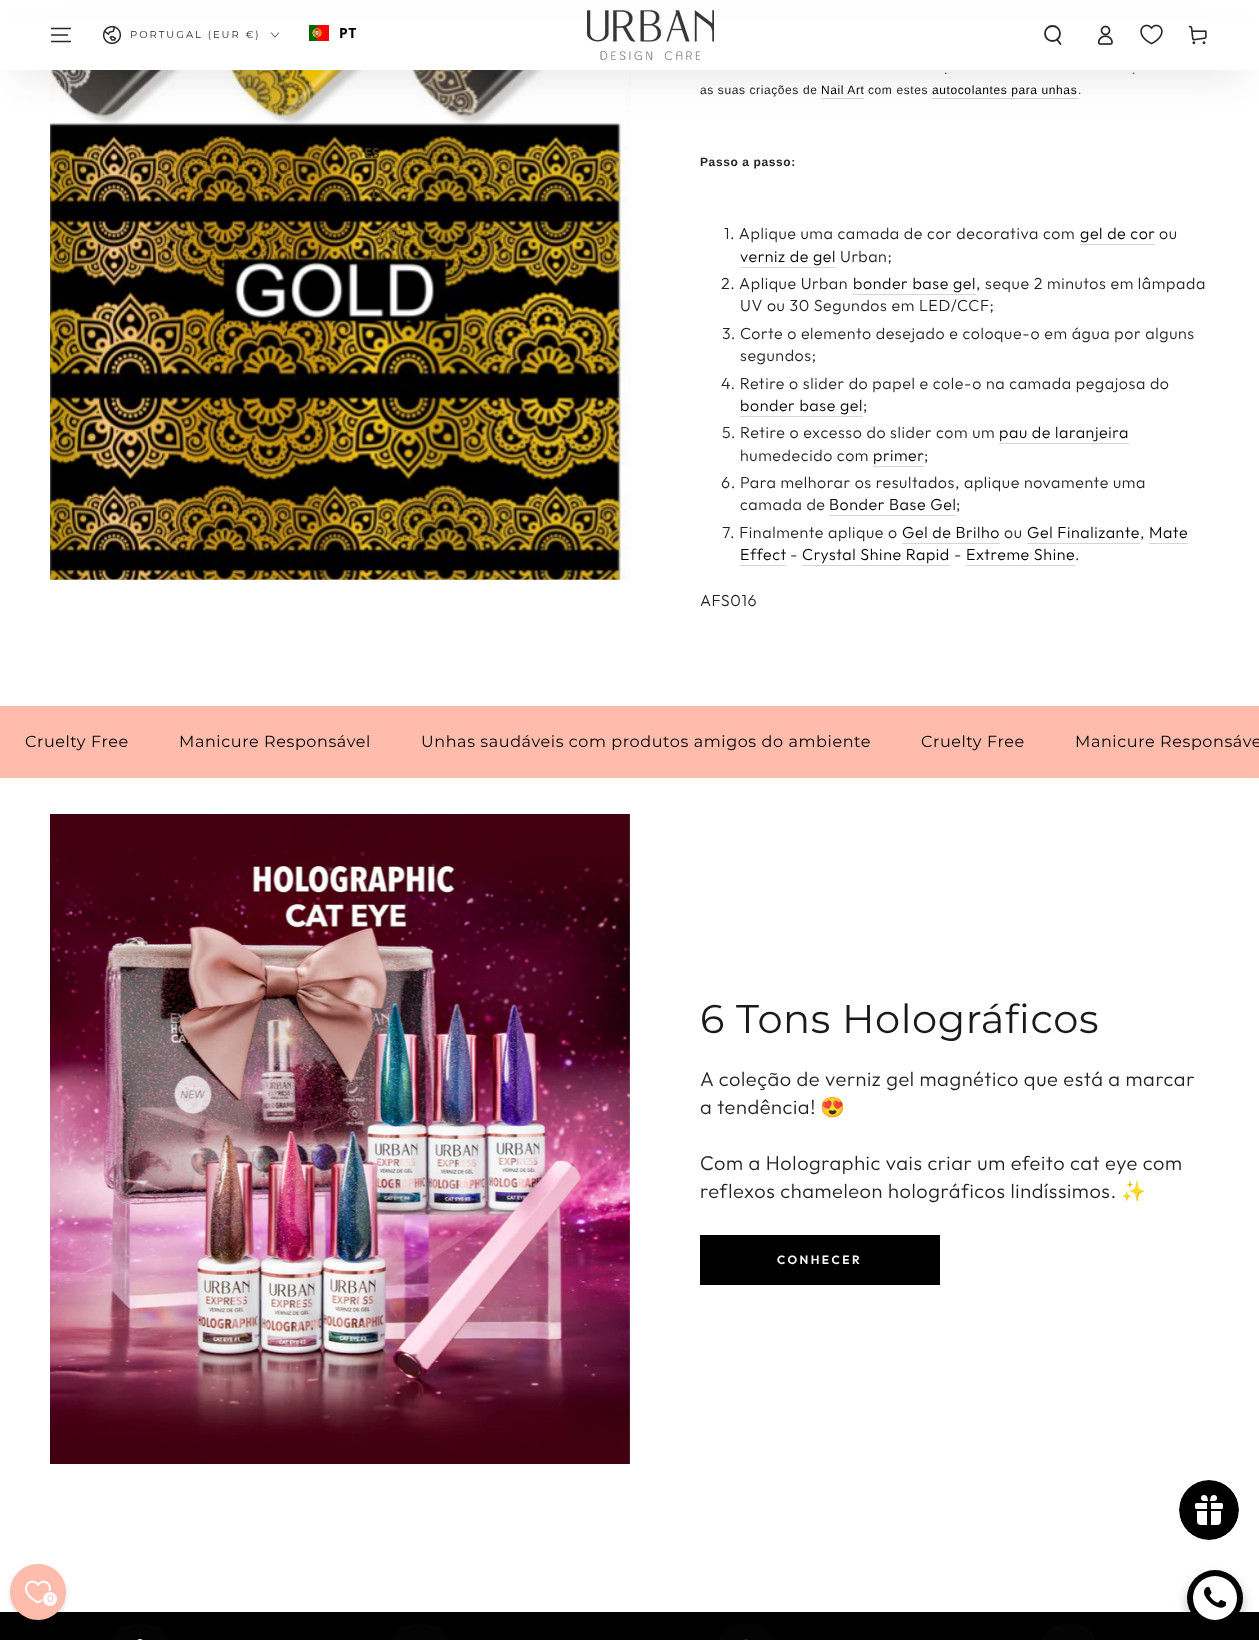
<!DOCTYPE html>
<meta charset="utf-8">
<style>body { margin: 0 } canvas { display: block }</style>
<canvas id="canvas" width="1259" height="1640"></canvas>
<img id="img1" src="images/8.png" hidden>
<img id="img2" src="images/1.png" hidden>
<img id="img3" src="images/2.png" hidden>
<img id="img4" src="images/3.png" hidden>
<img id="img5" src="images/4.png" hidden>
<img id="img6" src="images/5.png" hidden>
<img id="img7" src="images/6.png" hidden>
<img id="img8" src="images/7.png" hidden>
<img id="img9" src="images/9.png" hidden>
<img id="img10" src="images/10.png" hidden>
<img id="img11" src="images/11.png" hidden>
<img id="img12" src="images/12.png" hidden>
<img id="img13" src="images/13.png" hidden>
<img id="img14" src="images/14.png" hidden>
<script>
window.onload = function () {
    const canvas = document.getElementById('canvas');
    const context = canvas.getContext('2d');
    context.miterLimit = 4;
    context.fontKerning = 'normal';

    context.fillStyle = 'rgb(255, 255, 255)';
    context.fillRect(0, 0, 1259, 1640);
    context.fillStyle = 'rgb(243, 243, 243)';
    context.fillRect(50, 70, 580, 510);
    context.drawImage(document.getElementById('img1'), 50, 70, 580, 510);
    context.fillStyle = 'rgb(210, 213, 217)';
    context.fillRect(821, 98, 43, 1);
    context.fillRect(932, 98, 146, 1);
    context.fillStyle = 'rgba(33, 35, 38, 0.2)';
    context.filter = 'blur(20px)';
    context.beginPath();
    context.roundRect(15, 50, 1229, 20, 10);
    context.fill();
    context.filter = 'none';
    context.fillStyle = 'rgb(255, 255, 255)';
    context.fillRect(0, 19, 1259, 51);
    context.drawImage(document.getElementById('img2'), 587, 10, 127, 50);
    context.beginPath();
    context.moveTo(51, 41.5);
    context.lineTo(71, 41.5);
    context.moveTo(51, 35);
    context.lineTo(68, 35);
    context.moveTo(51, 28.5);
    context.lineTo(71, 28.5);
    context.strokeStyle = 'rgb(40, 40, 40)';
    context.lineWidth = 1.6;
    context.stroke();
    context.drawImage(document.getElementById('img3'), 102, 25, 20, 20);
    context.drawImage(document.getElementById('img4'), 271, 32, 8, 6);
    context.drawImage(document.getElementById('img5'), 309, 25, 20, 16);
    context.beginPath();
    context.arc(1052.5, 33.5, 7.5, 0, 2 * Math.PI);
    context.lineWidth = 1.8;
    context.stroke();
    context.beginPath();
    context.moveTo(1057, 39.5);
    context.lineTo(1060.5, 44);
    context.lineCap = 'round';
    context.stroke();
    context.drawImage(document.getElementById('img6'), 1097, 25, 16, 20);
    context.drawImage(document.getElementById('img7'), 1140, 24, 23, 21);
    context.drawImage(document.getElementById('img8'), 1188, 25, 19, 20);
    context.fillStyle = 'rgb(210, 213, 217)';
    context.fillRect(1080, 244, 75, 1);
    context.fillRect(740, 267, 96, 1);
    context.fillRect(853, 294, 123, 1);
    context.fillRect(740, 416, 123, 1);
    context.fillRect(999, 443, 130, 1);
    context.fillRect(873, 466, 51, 1);
    context.fillRect(829, 515, 127, 1);
    context.fillRect(902, 543, 98, 1);
    context.fillRect(1027, 543, 113, 1);
    context.fillRect(1149, 543, 39, 1);
    context.fillRect(740, 565, 46, 1);
    context.fillRect(802, 565, 148, 1);
    context.fillRect(966, 565, 109, 1);
    context.fillStyle = 'rgb(255, 187, 171)';
    context.fillRect(0, 706, 1259, 72);
    context.drawImage(document.getElementById('img9'), 50, 814, 580, 650);
    context.fillStyle = 'rgb(0, 0, 0)';
    context.fillRect(700, 1235, 240, 50);
    context.fillRect(0, 1612, 1259, 28);
    context.fillStyle = 'rgb(4, 4, 4)';
    context.beginPath();
    context.roundRect(112, 1624, 56, 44, 28);
    context.fill();
    context.drawImage(document.getElementById('img10'), 137, 1639, 6, 1);
    context.beginPath();
    context.roundRect(392, 1624, 56, 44, 28);
    context.fill();
    context.beginPath();
    context.roundRect(718, 1624, 56, 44, 28);
    context.fill();
    context.drawImage(document.getElementById('img11'), 744, 1639, 4, 1);
    context.beginPath();
    context.roundRect(1041, 1624, 56, 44, 28);
    context.fill();
    context.drawImage(document.getElementById('img12'), 1179, 1480, 60, 60);
    context.fillStyle = 'rgba(0, 0, 0, 0.15)';
    context.filter = 'blur(2px)';
    context.beginPath();
    context.roundRect(10, 1566, 56, 56, 28);
    context.fill();
    context.filter = 'none';
    context.fillStyle = 'rgb(255, 187, 171)';
    context.beginPath();
    context.arc(38, 1592, 27, 0, 2 * Math.PI);
    context.fill();
    context.strokeStyle = 'rgb(255, 187, 171)';
    context.lineWidth = 2;
    context.stroke();
    context.drawImage(document.getElementById('img13'), 25, 1580, 26, 24);
    context.fillStyle = 'rgb(255, 255, 255)';
    context.beginPath();
    context.arc(50, 1599, 7.5, 0, 2 * Math.PI);
    context.fill();
    context.lineWidth = 1;
    context.stroke();
    context.fillStyle = 'rgba(0, 0, 0, 0.25)';
    context.filter = 'blur(6px)';
    context.beginPath();
    context.roundRect(1187, 1576, 56, 56, 28);
    context.fill();
    context.filter = 'none';
    context.fillStyle = 'rgb(0, 0, 0)';
    context.beginPath();
    context.arc(1215, 1598, 28, 0, 2 * Math.PI);
    context.fill();
    context.fillStyle = 'rgb(255, 255, 255)';
    context.beginPath();
    context.arc(1215, 1598, 22, 0, 2 * Math.PI);
    context.fill();
    context.drawImage(document.getElementById('img14'), 1204, 1587, 22, 21);
    context.letterSpacing = '2px';
    context.font = '100 10px Montserrat';
    context.fillStyle = 'rgb(40, 40, 40)';
    context.fillText('PORTUGAL (EUR €)', 130, 38);
    context.letterSpacing = '0.6px';
    context.font = 'bold 14px Noto Sans';
    context.fillStyle = 'rgb(0, 0, 0)';
    context.fillText('PT', 339, 38);
    context.letterSpacing = '0px';
    context.fillStyle = 'rgb(72, 57, 15)';
    context.fillText('ES', 364, 158);
    context.fillStyle = 'rgb(92, 69, 17)';
    context.fillText('IT', 371, 198);
    context.fillStyle = 'rgb(133, 106, 26)';
    context.fillText('DE', 378, 238);
    context.letterSpacing = '0.6px';
    context.font = '12px Liberation Sans';
    context.fillStyle = 'rgb(33, 35, 38)';
    context.fillText('.', 944, 74);
    context.fillText('.', 1132, 74);
    context.fillText('as suas criações de', 700, 94);
    context.fillStyle = 'rgb(0, 0, 0)';
    context.fillText('Nail Art', 821, 94);
    context.fillStyle = 'rgb(33, 35, 38)';
    context.fillText('com estes', 868, 94);
    context.fillStyle = 'rgb(0, 0, 0)';
    context.fillText('autocolantes para unhas', 932, 94);
    context.fillStyle = 'rgb(33, 35, 38)';
    context.fillText('.', 1078, 94);
    context.font = 'bold 12px Liberation Sans';
    context.fillText('Passo a passo:', 700, 166);
    context.font = '300 16px Outfit';
    context.fillText('1. Aplique uma camada de cor decorativa com', 724, 239);
    context.fillStyle = 'rgb(0, 0, 0)';
    context.fillText('gel de cor', 1080, 239);
    context.fillStyle = 'rgb(33, 35, 38)';
    context.fillText('ou', 1159, 239);
    context.fillStyle = 'rgb(0, 0, 0)';
    context.fillText('verniz de gel', 740, 262);
    context.fillStyle = 'rgb(33, 35, 38)';
    context.fillText('Urban;', 840, 262);
    context.fillText('2. Aplique Urban', 721, 289);
    context.fillStyle = 'rgb(0, 0, 0)';
    context.fillText('bonder base gel', 853, 289);
    context.fillStyle = 'rgb(33, 35, 38)';
    context.fillText(', seque 2 minutos em lâmpada', 976, 289);
    context.fillText('UV ou 30 Segundos em LED/CCF;', 740, 311);
    context.fillText('3. Corte o elemento desejado e coloque-o em água por alguns', 722, 339);
    context.fillText('segundos;', 740, 361);
    context.fillText('4. Retire o slider do papel e cole-o na camada pegajosa do', 721, 389);
    context.fillStyle = 'rgb(0, 0, 0)';
    context.fillText('bonder base gel', 740, 411);
    context.fillStyle = 'rgb(33, 35, 38)';
    context.fillText(';', 863, 411);
    context.fillText('5. Retire o excesso do slider com um', 722, 438);
    context.fillStyle = 'rgb(0, 0, 0)';
    context.fillText('pau de laranjeira', 999, 438);
    context.fillStyle = 'rgb(33, 35, 38)';
    context.fillText('humedecido com', 740, 461);
    context.fillStyle = 'rgb(0, 0, 0)';
    context.fillText('primer', 873, 461);
    context.fillStyle = 'rgb(33, 35, 38)';
    context.fillText(';', 924, 461);
    context.fillText('6. Para melhorar os resultados, aplique novamente uma', 721, 488);
    context.fillText('camada de', 740, 510);
    context.fillStyle = 'rgb(0, 0, 0)';
    context.fillText('Bonder Base Gel', 829, 510);
    context.fillStyle = 'rgb(33, 35, 38)';
    context.fillText(';', 956, 510);
    context.fillText('7. Finalmente aplique o', 722, 538);
    context.fillStyle = 'rgb(0, 0, 0)';
    context.fillText('Gel de Brilho', 902, 538);
    context.fillStyle = 'rgb(33, 35, 38)';
    context.fillText('ou', 1004, 538);
    context.fillStyle = 'rgb(0, 0, 0)';
    context.fillText('Gel Finalizante', 1027, 538);
    context.fillStyle = 'rgb(33, 35, 38)';
    context.fillText(',', 1140, 538);
    context.fillStyle = 'rgb(0, 0, 0)';
    context.fillText('Mate', 1149, 538);
    context.fillText('Effect', 740, 560);
    context.fillStyle = 'rgb(33, 35, 38)';
    context.fillText('-', 790, 560);
    context.fillStyle = 'rgb(0, 0, 0)';
    context.fillText('Crystal Shine Rapid', 802, 560);
    context.fillStyle = 'rgb(33, 35, 38)';
    context.fillText('-', 954, 560);
    context.fillStyle = 'rgb(0, 0, 0)';
    context.fillText('Extreme Shine', 966, 560);
    context.fillStyle = 'rgb(33, 35, 38)';
    context.fillText('.', 1075, 560);
    context.fillText('AFS016', 700, 606);
    context.font = '100 16px Montserrat';
    context.fillStyle = 'rgb(0, 0, 0)';
    context.fillText('Cruelty Free', 25, 747);
    context.fillText('Manicure Responsável', 179, 747);
    context.fillText('Unhas saudáveis com produtos amigos do ambiente', 421, 747);
    context.fillText('Cruelty Free', 921, 747);
    context.fillText('Manicure Responsáve', 1075, 747);
    context.font = '100 40px Montserrat';
    context.fillStyle = 'rgb(26, 27, 24)';
    context.fillText('6 Tons Holográficos', 700, 1033);
    context.font = '300 20px Outfit';
    context.fillStyle = 'rgb(33, 35, 38)';
    context.fillText('A coleção de verniz gel magnético que está a marcar', 700, 1086);
    context.fillText('a tendência!', 700, 1114);
    context.font = '20px Noto Color Emoji';
    context.fillText('😍', 820, 1114);
    context.font = '300 20px Outfit';
    context.fillText('Com a Holographic vais criar um efeito cat eye com', 700, 1170);
    context.fillText('reflexos chameleon holográficos lindíssimos.', 700, 1198);
    context.font = '20px Noto Color Emoji';
    context.fillText('✨', 1121, 1198);
    context.letterSpacing = '2.5px';
    context.font = '600 12px Outfit';
    context.fillStyle = 'rgb(255, 255, 255)';
    context.fillText('CONHECER', 777, 1264);
    context.letterSpacing = '0.6px';
    context.font = '300 10px Outfit';
    context.fillStyle = 'rgb(255, 187, 171)';
    context.fillText('0', 47, 1602);
};
</script>
